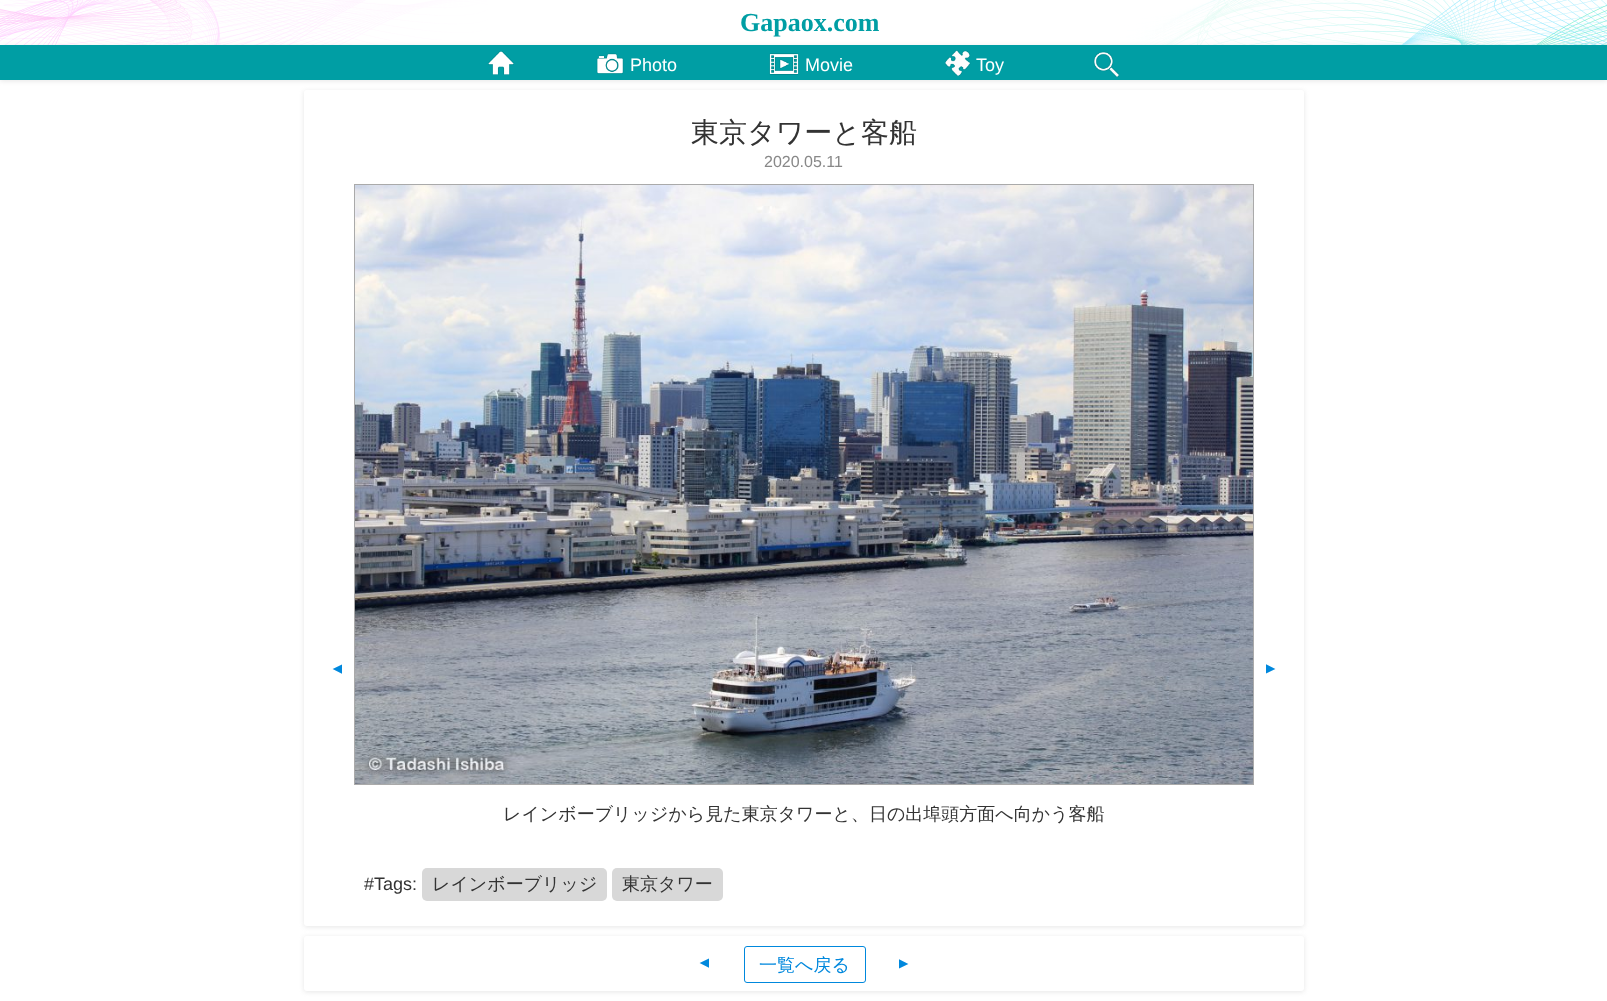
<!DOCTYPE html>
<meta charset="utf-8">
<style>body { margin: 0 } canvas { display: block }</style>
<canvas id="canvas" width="1607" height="1001"></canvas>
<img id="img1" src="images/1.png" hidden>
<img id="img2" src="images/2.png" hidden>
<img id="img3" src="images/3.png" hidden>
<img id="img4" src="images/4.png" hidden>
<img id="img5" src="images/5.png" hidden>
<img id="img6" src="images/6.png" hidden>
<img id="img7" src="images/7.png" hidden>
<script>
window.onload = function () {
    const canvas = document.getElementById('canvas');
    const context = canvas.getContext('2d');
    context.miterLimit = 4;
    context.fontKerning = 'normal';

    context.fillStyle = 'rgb(255, 255, 255)';
    context.fillRect(0, 0, 1607, 1001);
    context.drawImage(document.getElementById('img1'), 0, 0, 1607, 45);
    context.fillStyle = 'rgba(128, 128, 128, 0.2)';
    context.filter = 'blur(2.5px)';
    context.beginPath();
    context.rect(0, 46, 1607, 35);
    context.fill();
    context.filter = 'none';
    context.fillStyle = 'rgb(0, 158, 164)';
    context.fillRect(0, 45, 1607, 35);
    context.drawImage(document.getElementById('img2'), 488, 51, 26, 24);
    context.drawImage(document.getElementById('img3'), 596, 53, 28, 21);
    context.drawImage(document.getElementById('img4'), 769, 53, 30, 22);
    context.drawImage(document.getElementById('img5'), 945, 50, 26, 26);
    context.drawImage(document.getElementById('img6'), 1093, 51, 26, 26);
    context.fillStyle = 'rgba(128, 128, 128, 0.2)';
    context.filter = 'blur(2.5px)';
    context.beginPath();
    context.roundRect(304, 91, 1000, 836, 3);
    context.fill();
    context.filter = 'none';
    context.fillStyle = 'rgb(255, 255, 255)';
    context.beginPath();
    context.roundRect(304, 90, 1000, 836, 3);
    context.fill();
    context.strokeStyle = 'rgb(170, 170, 170)';
    context.strokeRect(354.5, 184.5, 899, 600);
    context.drawImage(document.getElementById('img7'), 355, 185, 898, 599);
    context.fillStyle = 'rgb(216, 216, 216)';
    context.beginPath();
    context.roundRect(422, 868, 185, 33, 5);
    context.fill();
    context.beginPath();
    context.roundRect(612, 868, 111, 33, 5);
    context.fill();
    context.fillStyle = 'rgba(128, 128, 128, 0.2)';
    context.filter = 'blur(2.5px)';
    context.beginPath();
    context.roundRect(304, 937, 1000, 55, 3);
    context.fill();
    context.filter = 'none';
    context.fillStyle = 'rgb(255, 255, 255)';
    context.beginPath();
    context.roundRect(304, 936, 1000, 55, 3);
    context.fill();
    context.beginPath();
    context.roundRect(744.5, 946.5, 121, 36, 2.5);
    context.strokeStyle = 'rgb(0, 136, 221)';
    context.stroke();
    context.font = 'bold 26px Liberation Serif';
    context.fillStyle = 'rgb(0, 158, 164)';
    context.fillText('Gapaox.com', 740, 31);
    context.font = '18px Liberation Sans';
    context.fillStyle = 'rgb(255, 255, 255)';
    context.fillText('Photo', 630, 71);
    context.fillText('Movie', 805, 71);
    context.fillText('Toy', 976, 71);
    context.font = '500 28px WenQuanYi Zen Hei';
    context.fillStyle = 'rgb(51, 51, 51)';
    context.fillText('東京タワーと客船', 691, 142);
    context.font = '16px Liberation Sans';
    context.fillStyle = 'rgb(136, 136, 136)';
    context.fillText('2020.05.11', 764, 167);
    context.fillStyle = 'rgb(0, 136, 221)';
    context.save();
    context.translate(342, 677);
    context.rotate(-90 * Math.PI / 180);
    context.fillText('▲', 0, 0);
    context.restore();
    context.save();
    context.translate(1266, 661);
    context.rotate(90 * Math.PI / 180);
    context.fillText('▲', 0, 0);
    context.restore();
    context.font = '500 18px WenQuanYi Zen Hei';
    context.fillStyle = 'rgb(51, 51, 51)';
    context.fillText('レインボーブリッジから見た東京タワーと、日の出埠頭方面へ向かう客船', 503, 820);
    context.font = '18px Liberation Sans';
    context.fillText('#Tags:', 364, 890);
    context.font = '500 18px WenQuanYi Zen Hei';
    context.fillText('レインボーブリッジ', 432, 890);
    context.fillText('東京タワー', 622, 890);
    context.font = '16px Liberation Sans';
    context.fillStyle = 'rgb(0, 136, 221)';
    context.save();
    context.translate(709, 971);
    context.rotate(-90 * Math.PI / 180);
    context.fillText('▲', 0, 0);
    context.restore();
    context.font = '500 18px WenQuanYi Zen Hei';
    context.fillText('一覧へ戻る', 759, 971);
    context.font = '16px Liberation Sans';
    context.save();
    context.translate(899, 956);
    context.rotate(90 * Math.PI / 180);
    context.fillText('▲', 0, 0);
    context.restore();
};
</script>
